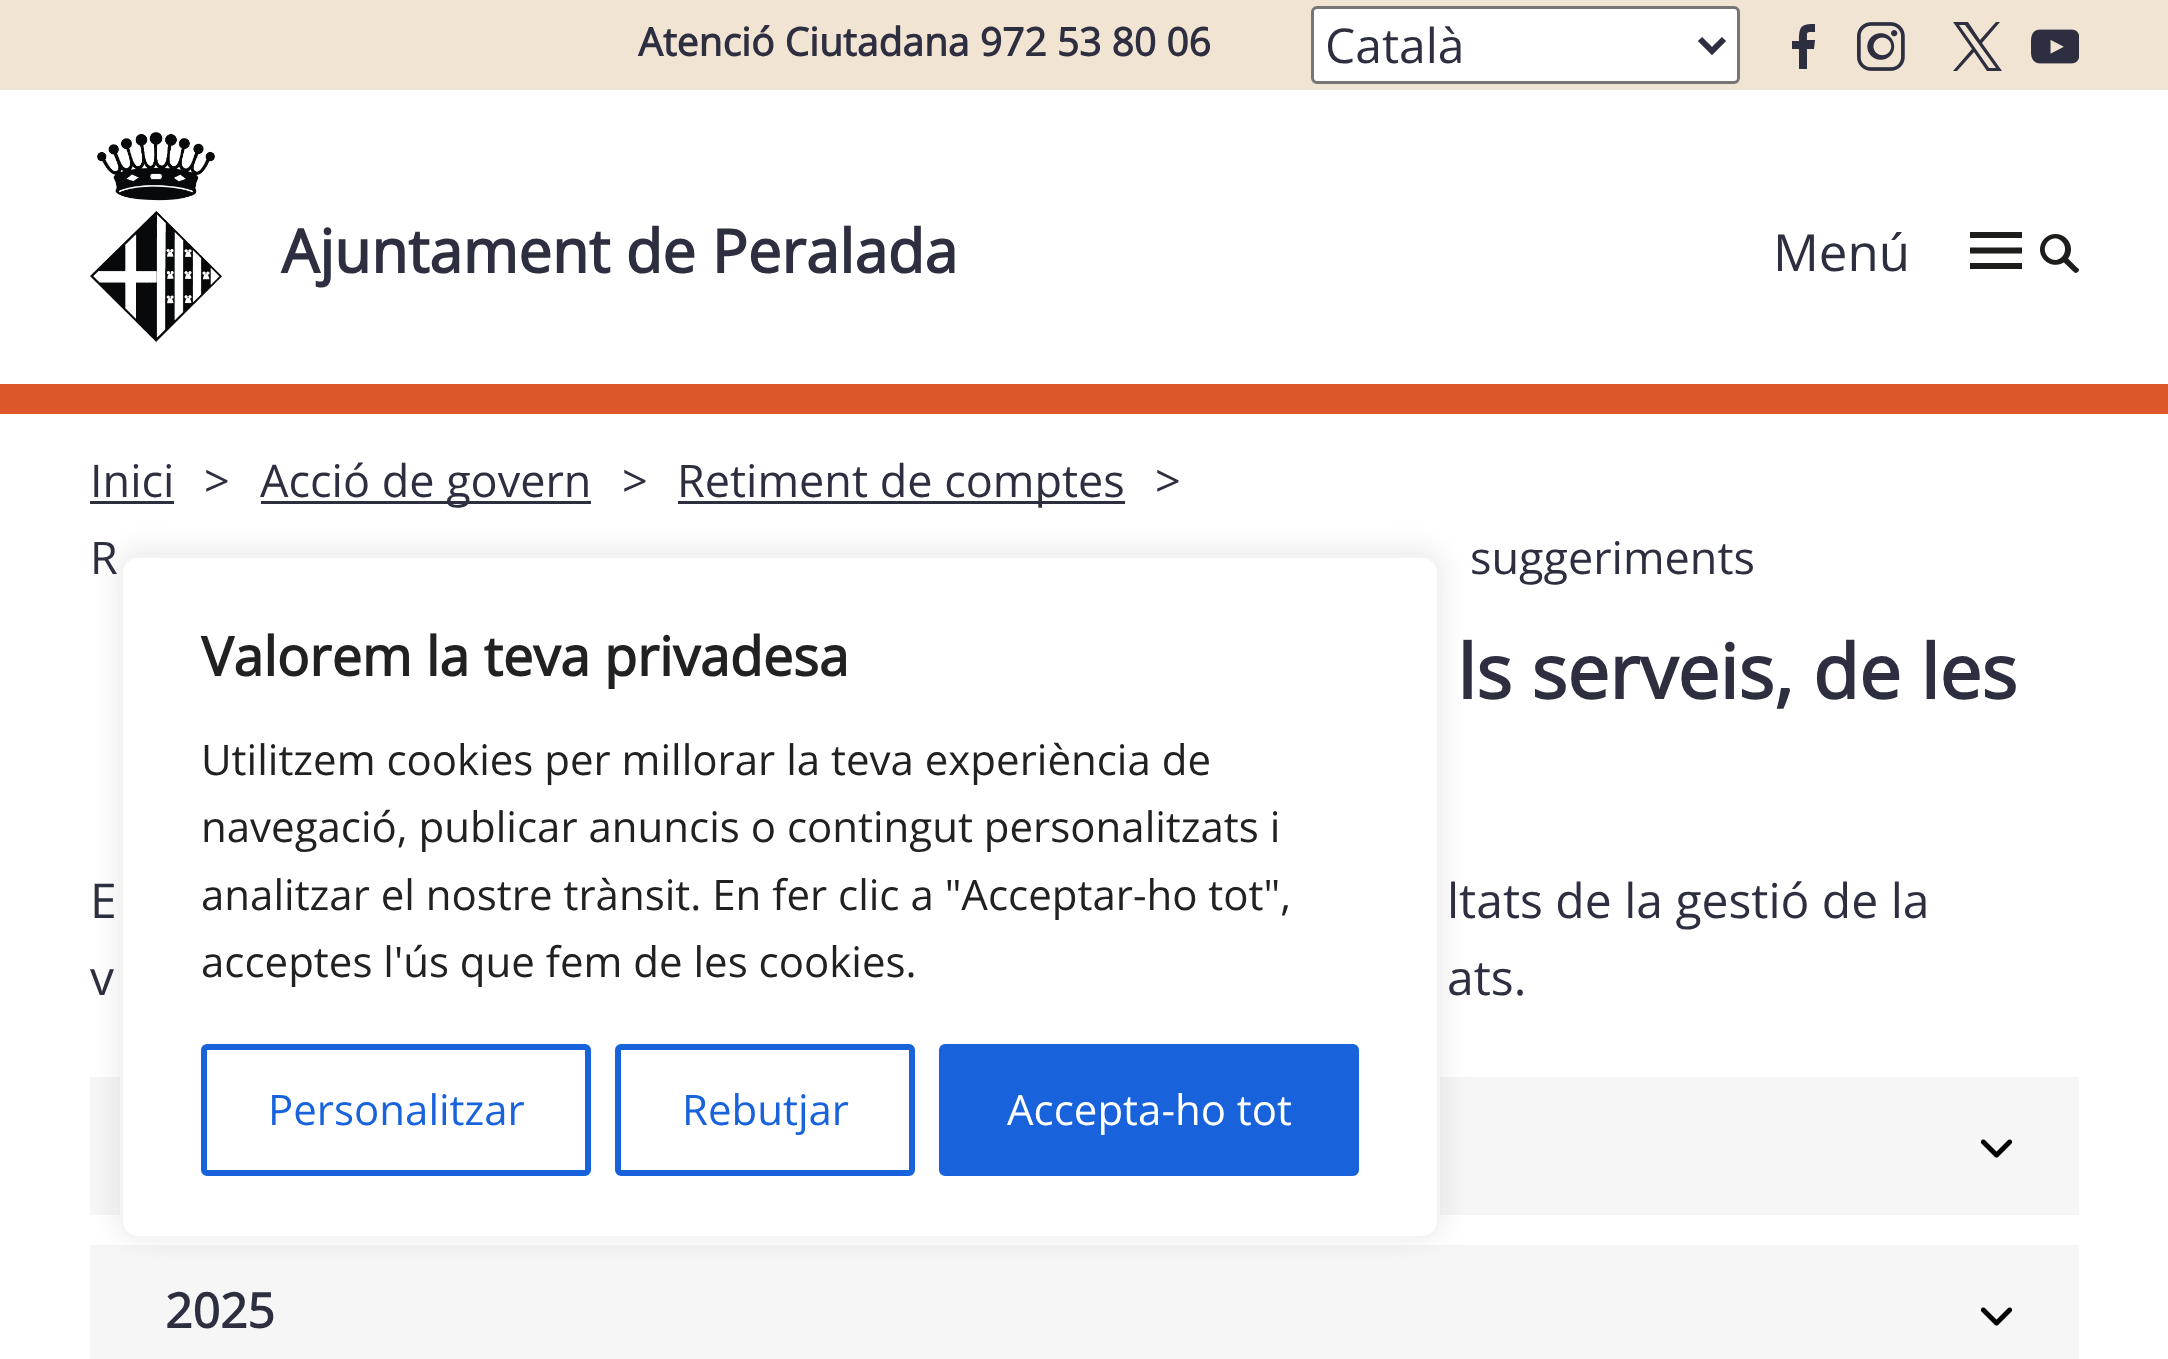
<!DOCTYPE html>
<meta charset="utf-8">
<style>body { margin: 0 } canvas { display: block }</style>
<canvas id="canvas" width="2168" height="1359"></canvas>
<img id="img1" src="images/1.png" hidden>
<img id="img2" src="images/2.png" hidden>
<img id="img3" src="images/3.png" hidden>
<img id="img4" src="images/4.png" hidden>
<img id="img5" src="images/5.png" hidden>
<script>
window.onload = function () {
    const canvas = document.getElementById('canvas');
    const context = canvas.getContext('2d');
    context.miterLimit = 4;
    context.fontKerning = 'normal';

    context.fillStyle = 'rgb(255, 255, 255)';
    context.fillRect(0, 0, 2168, 1359);
    context.fillStyle = 'rgb(220, 88, 42)';
    context.fillRect(0, 384, 2168, 30);
    context.fillStyle = 'rgb(241, 228, 210)';
    context.fillRect(0, 0, 2168, 90);
    context.fillStyle = 'rgb(255, 255, 255)';
    context.beginPath();
    context.roundRect(1312.5, 7.5, 426, 75, 4.5);
    context.fill();
    context.strokeStyle = 'rgb(118, 118, 118)';
    context.lineWidth = 3;
    context.stroke();
    context.beginPath();
    context.moveTo(1700, 39);
    context.lineTo(1712, 51);
    context.lineTo(1724, 39);
    context.strokeStyle = 'rgb(45, 46, 64)';
    context.lineWidth = 6;
    context.stroke();
    context.fillStyle = 'rgb(45, 46, 64)';
    context.beginPath();
    context.moveTo(1807, 69);
    context.lineTo(1807, 49);
    context.lineTo(1814, 49);
    context.lineTo(1815, 40);
    context.lineTo(1807, 40);
    context.bezierCurveTo(1807, 31, 1806, 32, 1815, 32);
    context.lineTo(1815, 24);
    context.bezierCurveTo(1801, 24, 1799, 26, 1799, 41);
    context.lineTo(1792, 41);
    context.lineTo(1792, 49);
    context.lineTo(1799, 49);
    context.lineTo(1799, 69);
    context.fill('evenodd');
    context.drawImage(document.getElementById('img1'), 1857, 22, 48, 49);
    context.beginPath();
    context.moveTo(1996, 22);
    context.lineTo(1980, 40);
    context.lineTo(1968, 22);
    context.lineTo(1953, 22);
    context.lineTo(1972, 49);
    context.lineTo(1953, 71);
    context.lineTo(1957, 71);
    context.lineTo(1974, 52);
    context.lineTo(1987, 71);
    context.lineTo(2002, 71);
    context.lineTo(1982, 43);
    context.lineTo(2000, 22);
    context.closePath();
    context.moveTo(1959, 25);
    context.lineTo(1965, 25);
    context.lineTo(1996, 68);
    context.lineTo(1989, 68);
    context.closePath();
    context.fill('evenodd');
    context.drawImage(document.getElementById('img2'), 2031, 29, 48, 35);
    context.drawImage(document.getElementById('img3'), 90, 132, 132, 210);
    context.fillStyle = 'rgb(29, 29, 27)';
    context.fillRect(1970, 232, 52, 6);
    context.beginPath();
    context.moveTo(1970, 250.5);
    context.lineTo(2022, 250.5);
    context.strokeStyle = 'rgb(29, 29, 27)';
    context.stroke();
    context.fillRect(1970, 263, 52, 6);
    context.drawImage(document.getElementById('img4'), 2040, 234, 39, 39);
    context.fillStyle = 'rgb(45, 46, 64)';
    context.fillRect(90, 501, 84, 3);
    context.fillRect(261, 501, 330, 3);
    context.fillRect(678, 501, 447, 3);
    context.fillStyle = 'rgb(246, 246, 247)';
    context.fillRect(90, 1077, 1989, 138);
    context.drawImage(document.getElementById('img5'), 1980, 1139, 33, 19);
    context.fillRect(90, 1245, 1989, 114);
    context.drawImage(document.getElementById('img5'), 1980, 1307, 33, 19);
    context.fillStyle = 'rgba(172, 171, 171, 0.3)';
    context.filter = 'blur(15px)';
    context.beginPath();
    context.roundRect(120, 552, 1320, 684, 18);
    context.fill();
    context.filter = 'none';
    context.fillStyle = 'rgb(255, 255, 255)';
    context.beginPath();
    context.roundRect(121.5, 556.5, 1317, 681, 16.5);
    context.fill();
    context.strokeStyle = 'rgb(244, 244, 244)';
    context.lineWidth = 3;
    context.stroke();
    context.beginPath();
    context.roundRect(204, 1047, 384, 126, 3);
    context.strokeStyle = 'rgb(24, 99, 220)';
    context.lineWidth = 6;
    context.stroke();
    context.beginPath();
    context.roundRect(618, 1047, 294, 126, 3);
    context.stroke();
    context.fillStyle = 'rgb(24, 99, 220)';
    context.beginPath();
    context.roundRect(942, 1047, 414, 126, 3);
    context.fill();
    context.stroke();
    context.font = 'bold 39px Open Sans';
    context.fillStyle = 'rgb(45, 46, 64)';
    context.fillText('Atenció Ciutadana 972 53 80 06', 638, 56);
    context.font = '48px Open Sans';
    context.fillText('Català', 1325, 63);
    context.font = 'bold 60px Open Sans';
    context.fillText('Ajuntament de Peralada', 281, 273);
    context.font = '51px Open Sans';
    context.fillText('Menú', 1773, 271);
    context.font = '45px Open Sans';
    context.fillText('Inici', 90, 497);
    context.fillText('>', 204, 497);
    context.fillText('Acció de govern', 260, 497);
    context.fillText('>', 622, 497);
    context.fillText('Retiment de comptes', 677, 497);
    context.fillText('>', 1155, 497);
    context.fillText('R', 90, 574);
    context.fillText('suggeriments', 1470, 574);
    context.font = 'bold 75px Open Sans';
    context.fillText('ls serveis, de les', 1457, 699);
    context.font = '48px Open Sans';
    context.fillText('E', 90, 918);
    context.fillText('ltats de la gestió de la', 1447, 918);
    context.fillText('v', 90, 995);
    context.fillText('ats.', 1447, 995);
    context.font = 'bold 48px Open Sans';
    context.fillText('2025', 165, 1328);
    context.font = 'bold 54px Open Sans';
    context.fillStyle = 'rgb(33, 33, 33)';
    context.fillText('Valorem la teva privadesa', 201, 676);
    context.font = '42px Open Sans';
    context.fillText('Utilitzem cookies per millorar la teva experiència de', 201, 775);
    context.fillText('navegació, publicar anuncis o contingut personalitzats i', 201, 842);
    context.fillText('analitzar el nostre trànsit. En fer clic a "Acceptar-ho tot",', 201, 910);
    context.fillText('acceptes l\'ús que fem de les cookies.', 201, 977);
    context.fillStyle = 'rgb(24, 99, 220)';
    context.fillText('Personalitzar', 268, 1125);
    context.fillText('Rebutjar', 682, 1125);
    context.fillStyle = 'rgb(255, 255, 255)';
    context.fillText('Accepta-ho tot', 1007, 1125);
};
</script>
